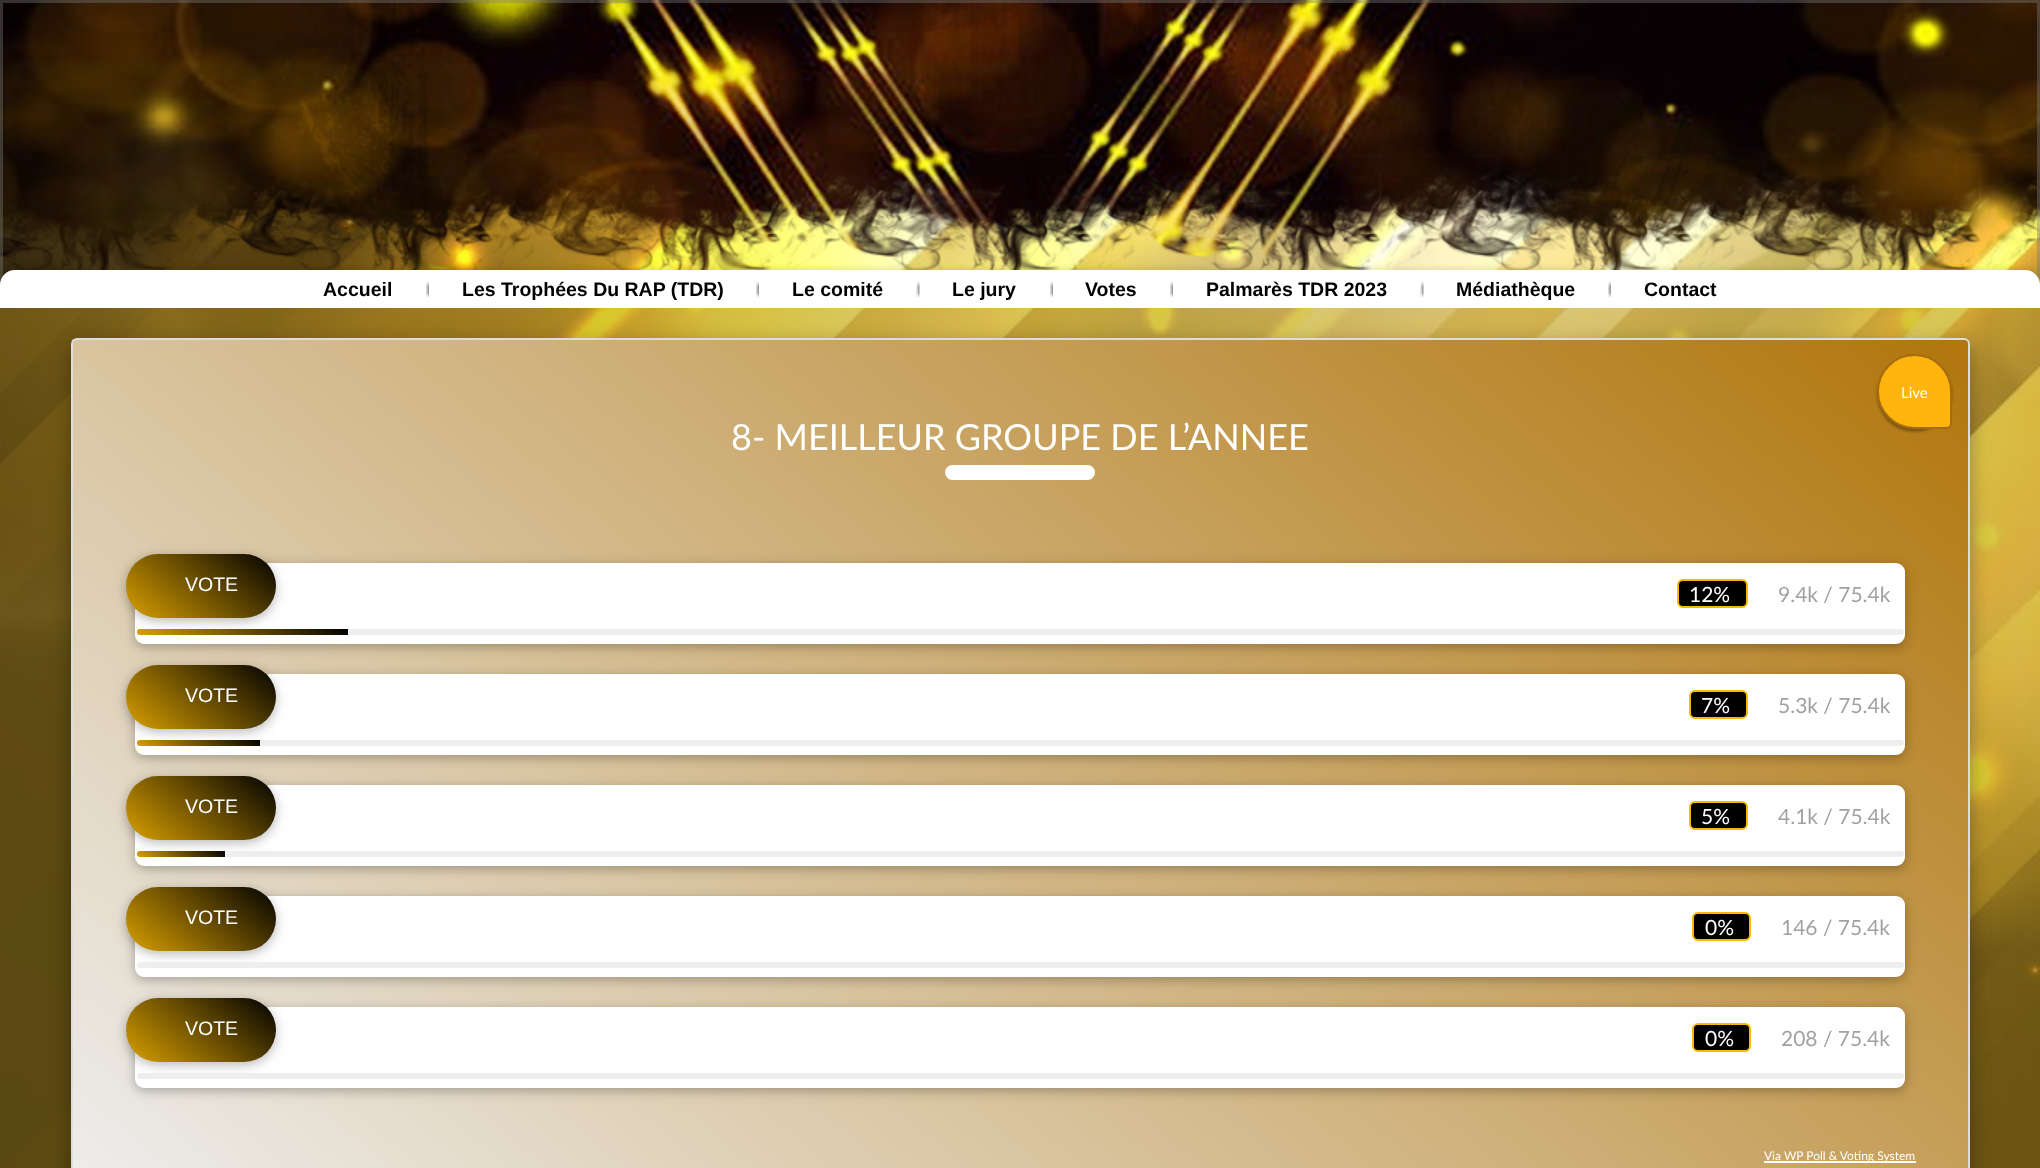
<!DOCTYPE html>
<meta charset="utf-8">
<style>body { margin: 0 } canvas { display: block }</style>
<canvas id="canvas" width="2040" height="1168"></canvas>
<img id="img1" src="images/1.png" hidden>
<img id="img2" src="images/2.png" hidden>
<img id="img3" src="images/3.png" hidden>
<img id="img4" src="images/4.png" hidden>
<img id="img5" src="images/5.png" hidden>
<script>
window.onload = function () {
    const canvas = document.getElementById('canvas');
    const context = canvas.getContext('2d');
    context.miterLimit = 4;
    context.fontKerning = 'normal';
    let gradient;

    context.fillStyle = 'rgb(255, 255, 255)';
    context.fillRect(0, 0, 2040, 1168);
    context.drawImage(document.getElementById('img1'), 0, 154, 2040, 1014);
    context.drawImage(document.getElementById('img2'), 0, 0, 2040, 270);
    context.strokeStyle = 'rgba(122, 122, 122, 0.4)';
    context.lineWidth = 3;
    context.strokeRect(1.5, 1.5, 2037, 297);
    context.save();
    context.beginPath();
    context.moveTo(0, 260);
    context.lineTo(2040, 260);
    context.lineTo(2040, 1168);
    context.lineTo(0, 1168);
    context.closePath();
    context.moveTo(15, 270);
    context.lineTo(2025, 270);
    context.bezierCurveTo(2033.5, 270, 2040, 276.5, 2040, 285);
    context.lineTo(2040, 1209);
    context.bezierCurveTo(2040, 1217.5, 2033.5, 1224, 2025, 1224);
    context.lineTo(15, 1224);
    context.bezierCurveTo(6.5, 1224, 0, 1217.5, 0, 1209);
    context.lineTo(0, 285);
    context.bezierCurveTo(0, 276.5, 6.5, 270, 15, 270);
    context.closePath();
    context.clip('evenodd');
    context.fillStyle = 'rgba(0, 0, 0, 0.07)';
    context.filter = 'blur(2px)';
    context.beginPath();
    context.roundRect(-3, 267, 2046, 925, 18);
    context.fill();
    context.filter = 'none';
    context.restore();
    context.fillStyle = 'rgba(179, 143, 35, 0.5)';
    context.beginPath();
    context.roundRect(0, 270, 2040, 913, 15);
    context.fill();
    context.fillStyle = 'rgb(255, 255, 255)';
    context.beginPath();
    context.roundRect(0, 270, 2040, 38, [15, 15, 0, 0]);
    context.fill();
    context.drawImage(document.getElementById('img3'), 426, 282, 3, 16);
    context.drawImage(document.getElementById('img3'), 756, 282, 3, 16);
    context.drawImage(document.getElementById('img4'), 916, 282, 4, 16);
    context.drawImage(document.getElementById('img3'), 1050, 282, 3, 16);
    context.drawImage(document.getElementById('img3'), 1170, 282, 3, 16);
    context.drawImage(document.getElementById('img4'), 1420, 282, 4, 16);
    context.drawImage(document.getElementById('img5'), 1608, 282, 3, 16);
    context.fillStyle = 'rgba(0, 0, 0, 0.15)';
    context.filter = 'blur(11px)';
    context.beginPath();
    context.roundRect(71, 344, 1899, 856, 6);
    context.fill();
    context.filter = 'none';
    context.fillStyle = 'rgba(0, 0, 0, 0.18)';
    context.filter = 'blur(8px)';
    context.beginPath();
    context.roundRect(71, 345, 1899, 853, 6);
    context.fill();
    context.filter = 'none';
    context.save();
    context.beginPath();
    context.roundRect(71, 338, 1899, 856, 6);
    context.clip();
    gradient = context.createLinearGradient(418, 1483, 1622, 49);
    gradient.addColorStop(0, 'rgb(238, 238, 238)');
    gradient.addColorStop(1, 'rgb(177, 118, 12)');
    context.fillStyle = gradient;
    context.fillRect(72, 339, 1896, 829);
    context.restore();
    context.beginPath();
    context.roundRect(72, 339, 1897, 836, 5);
    context.strokeStyle = 'rgb(221, 221, 221)';
    context.lineWidth = 2;
    context.stroke();
    context.fillStyle = 'rgba(0, 0, 0, 0.15)';
    context.filter = 'blur(1.5px)';
    context.beginPath();
    context.roundRect(1877, 357, 75, 75, 37.5);
    context.fill();
    context.filter = 'none';
    context.fillStyle = 'rgba(0, 0, 0, 0.18)';
    context.filter = 'blur(1px)';
    context.beginPath();
    context.roundRect(1877, 357, 75, 75, 37.5);
    context.fill();
    context.filter = 'none';
    context.fillStyle = 'rgb(255, 181, 13)';
    context.beginPath();
    context.roundRect(1878, 355, 73, 73, [36.5, 36.5, 5, 36.5]);
    context.fill();
    context.strokeStyle = 'rgb(167, 107, 17)';
    context.stroke();
    context.fillStyle = 'rgb(255, 255, 255)';
    context.beginPath();
    context.roundRect(945, 465, 150, 15, 7.5);
    context.fill();
    context.fillStyle = 'rgba(0, 0, 0, 0.12)';
    context.filter = 'blur(7.5px)';
    context.beginPath();
    context.roundRect(135, 566, 1770, 81, 9);
    context.fill();
    context.filter = 'none';
    context.fillStyle = 'rgba(0, 0, 0, 0.16)';
    context.filter = 'blur(4px)';
    context.beginPath();
    context.roundRect(135, 566, 1770, 81, 9);
    context.fill();
    context.filter = 'none';
    context.fillStyle = 'rgb(255, 255, 255)';
    context.beginPath();
    context.roundRect(135, 563, 1770, 81, 9);
    context.fill();
    context.fillStyle = 'rgba(0, 0, 0, 0.12)';
    context.filter = 'blur(7.5px)';
    context.beginPath();
    context.roundRect(126, 557, 150, 64, 32);
    context.fill();
    context.filter = 'none';
    context.fillStyle = 'rgba(0, 0, 0, 0.16)';
    context.filter = 'blur(4px)';
    context.beginPath();
    context.roundRect(126, 557, 150, 64, 32);
    context.fill();
    context.filter = 'none';
    gradient = context.createLinearGradient(154, 642, 248, 530);
    gradient.addColorStop(0, 'rgb(217, 160, 0)');
    gradient.addColorStop(1, 'rgb(0, 0, 0)');
    context.fillStyle = gradient;
    context.beginPath();
    context.roundRect(126, 554, 150, 64, 32);
    context.fill();
    context.fillStyle = 'rgb(0, 0, 0)';
    context.beginPath();
    context.roundRect(1678, 580, 69, 27, 5);
    context.fill();
    context.strokeStyle = 'rgb(249, 185, 3)';
    context.stroke();
    context.fillStyle = 'rgb(238, 238, 238)';
    context.beginPath();
    context.roundRect(137, 629, 1767, 6, 3);
    context.fill();
    gradient = context.createLinearGradient(197, 685, 287, 578);
    gradient.addColorStop(0, 'rgb(217, 160, 0)');
    gradient.addColorStop(1, 'rgb(0, 0, 0)');
    context.fillStyle = gradient;
    context.beginPath();
    context.roundRect(137, 629, 211, 6, [3, 0, 0, 3]);
    context.fill();
    context.fillStyle = 'rgba(0, 0, 0, 0.12)';
    context.filter = 'blur(7.5px)';
    context.beginPath();
    context.roundRect(135, 677, 1770, 81, 9);
    context.fill();
    context.filter = 'none';
    context.fillStyle = 'rgba(0, 0, 0, 0.16)';
    context.filter = 'blur(4px)';
    context.beginPath();
    context.roundRect(135, 677, 1770, 81, 9);
    context.fill();
    context.filter = 'none';
    context.fillStyle = 'rgb(255, 255, 255)';
    context.beginPath();
    context.roundRect(135, 674, 1770, 81, 9);
    context.fill();
    context.fillStyle = 'rgba(0, 0, 0, 0.12)';
    context.filter = 'blur(7.5px)';
    context.beginPath();
    context.roundRect(126, 668, 150, 64, 32);
    context.fill();
    context.filter = 'none';
    context.fillStyle = 'rgba(0, 0, 0, 0.16)';
    context.filter = 'blur(4px)';
    context.beginPath();
    context.roundRect(126, 668, 150, 64, 32);
    context.fill();
    context.filter = 'none';
    gradient = context.createLinearGradient(154, 753, 248, 641);
    gradient.addColorStop(0, 'rgb(217, 160, 0)');
    gradient.addColorStop(1, 'rgb(0, 0, 0)');
    context.fillStyle = gradient;
    context.beginPath();
    context.roundRect(126, 665, 150, 64, 32);
    context.fill();
    context.fillStyle = 'rgb(0, 0, 0)';
    context.beginPath();
    context.roundRect(1690, 691, 57, 27, 5);
    context.fill();
    context.stroke();
    context.fillStyle = 'rgb(238, 238, 238)';
    context.beginPath();
    context.roundRect(137, 740, 1767, 6, 3);
    context.fill();
    gradient = context.createLinearGradient(171, 775, 225, 710);
    gradient.addColorStop(0, 'rgb(217, 160, 0)');
    gradient.addColorStop(1, 'rgb(0, 0, 0)');
    context.fillStyle = gradient;
    context.beginPath();
    context.roundRect(137, 740, 123, 6, [3, 0, 0, 3]);
    context.fill();
    context.fillStyle = 'rgba(0, 0, 0, 0.12)';
    context.filter = 'blur(7.5px)';
    context.beginPath();
    context.roundRect(135, 788, 1770, 81, 9);
    context.fill();
    context.filter = 'none';
    context.fillStyle = 'rgba(0, 0, 0, 0.16)';
    context.filter = 'blur(4px)';
    context.beginPath();
    context.roundRect(135, 788, 1770, 81, 9);
    context.fill();
    context.filter = 'none';
    context.fillStyle = 'rgb(255, 255, 255)';
    context.beginPath();
    context.roundRect(135, 785, 1770, 81, 9);
    context.fill();
    context.fillStyle = 'rgba(0, 0, 0, 0.12)';
    context.filter = 'blur(7.5px)';
    context.beginPath();
    context.roundRect(126, 779, 150, 64, 32);
    context.fill();
    context.filter = 'none';
    context.fillStyle = 'rgba(0, 0, 0, 0.16)';
    context.filter = 'blur(4px)';
    context.beginPath();
    context.roundRect(126, 779, 150, 64, 32);
    context.fill();
    context.filter = 'none';
    gradient = context.createLinearGradient(154, 864, 248, 752);
    gradient.addColorStop(0, 'rgb(217, 160, 0)');
    gradient.addColorStop(1, 'rgb(0, 0, 0)');
    context.fillStyle = gradient;
    context.beginPath();
    context.roundRect(126, 776, 150, 64, 32);
    context.fill();
    context.fillStyle = 'rgb(0, 0, 0)';
    context.beginPath();
    context.roundRect(1690, 802, 57, 27, 5);
    context.fill();
    context.stroke();
    context.fillStyle = 'rgb(238, 238, 238)';
    context.beginPath();
    context.roundRect(137, 851, 1767, 6, 3);
    context.fill();
    gradient = context.createLinearGradient(161, 877, 201, 830);
    gradient.addColorStop(0, 'rgb(217, 160, 0)');
    gradient.addColorStop(1, 'rgb(0, 0, 0)');
    context.fillStyle = gradient;
    context.beginPath();
    context.roundRect(137, 851, 88, 6, [3, 0, 0, 3]);
    context.fill();
    context.fillStyle = 'rgba(0, 0, 0, 0.12)';
    context.filter = 'blur(7.5px)';
    context.beginPath();
    context.roundRect(135, 899, 1770, 81, 9);
    context.fill();
    context.filter = 'none';
    context.fillStyle = 'rgba(0, 0, 0, 0.16)';
    context.filter = 'blur(4px)';
    context.beginPath();
    context.roundRect(135, 899, 1770, 81, 9);
    context.fill();
    context.filter = 'none';
    context.fillStyle = 'rgb(255, 255, 255)';
    context.beginPath();
    context.roundRect(135, 896, 1770, 81, 9);
    context.fill();
    context.fillStyle = 'rgba(0, 0, 0, 0.12)';
    context.filter = 'blur(7.5px)';
    context.beginPath();
    context.roundRect(126, 890, 150, 64, 32);
    context.fill();
    context.filter = 'none';
    context.fillStyle = 'rgba(0, 0, 0, 0.16)';
    context.filter = 'blur(4px)';
    context.beginPath();
    context.roundRect(126, 890, 150, 64, 32);
    context.fill();
    context.filter = 'none';
    gradient = context.createLinearGradient(154, 975, 248, 863);
    gradient.addColorStop(0, 'rgb(217, 160, 0)');
    gradient.addColorStop(1, 'rgb(0, 0, 0)');
    context.fillStyle = gradient;
    context.beginPath();
    context.roundRect(126, 887, 150, 64, 32);
    context.fill();
    context.fillStyle = 'rgb(0, 0, 0)';
    context.beginPath();
    context.roundRect(1693, 913, 57, 27, 5);
    context.fill();
    context.stroke();
    context.fillStyle = 'rgb(238, 238, 238)';
    context.beginPath();
    context.roundRect(137, 962, 1767, 6, 3);
    context.fill();
    context.fillStyle = 'rgba(0, 0, 0, 0.12)';
    context.filter = 'blur(7.5px)';
    context.beginPath();
    context.roundRect(135, 1010, 1770, 81, 9);
    context.fill();
    context.filter = 'none';
    context.fillStyle = 'rgba(0, 0, 0, 0.16)';
    context.filter = 'blur(4px)';
    context.beginPath();
    context.roundRect(135, 1010, 1770, 81, 9);
    context.fill();
    context.filter = 'none';
    context.fillStyle = 'rgb(255, 255, 255)';
    context.beginPath();
    context.roundRect(135, 1007, 1770, 81, 9);
    context.fill();
    context.fillStyle = 'rgba(0, 0, 0, 0.12)';
    context.filter = 'blur(7.5px)';
    context.beginPath();
    context.roundRect(126, 1001, 150, 64, 32);
    context.fill();
    context.filter = 'none';
    context.fillStyle = 'rgba(0, 0, 0, 0.16)';
    context.filter = 'blur(4px)';
    context.beginPath();
    context.roundRect(126, 1001, 150, 64, 32);
    context.fill();
    context.filter = 'none';
    gradient = context.createLinearGradient(154, 1086, 248, 974);
    gradient.addColorStop(0, 'rgb(217, 160, 0)');
    gradient.addColorStop(1, 'rgb(0, 0, 0)');
    context.fillStyle = gradient;
    context.beginPath();
    context.roundRect(126, 998, 150, 64, 32);
    context.fill();
    context.fillStyle = 'rgb(0, 0, 0)';
    context.beginPath();
    context.roundRect(1693, 1024, 57, 27, 5);
    context.fill();
    context.stroke();
    context.fillStyle = 'rgb(238, 238, 238)';
    context.beginPath();
    context.roundRect(137, 1073, 1767, 6, 3);
    context.fill();
    context.fillStyle = 'rgb(255, 255, 255)';
    context.fillRect(1764, 1161, 152, 2);
    context.font = 'bold 19.5px Liberation Sans';
    context.fillStyle = 'rgb(0, 0, 0)';
    context.fillText('Accueil', 323, 296);
    context.fillText('Les Trophées Du RAP (TDR)', 462, 296);
    context.fillText('Le comité', 792, 296);
    context.fillText('Le jury', 952, 296);
    context.fillText('Votes', 1085, 296);
    context.fillText('Palmarès TDR 2023', 1206, 296);
    context.fillText('Médiathèque', 1456, 296);
    context.fillText('Contact', 1644, 296);
    context.font = '15px Lato';
    context.fillStyle = 'rgb(255, 255, 255)';
    context.fillText('Live', 1901, 398);
    context.font = '36px Lato';
    context.fillText('8- MEILLEUR GROUPE DE L’ANNEE', 731, 450);
    context.font = '19.5px Liberation Sans';
    context.fillText('VOTE', 185, 591);
    context.font = '21px Lato';
    context.fillText('12%', 1689, 602);
    context.fillStyle = 'rgb(161, 161, 164)';
    context.fillText('9.4k / 75.4k', 1778, 602);
    context.font = '19.5px Liberation Sans';
    context.fillStyle = 'rgb(255, 255, 255)';
    context.fillText('VOTE', 185, 702);
    context.font = '21px Lato';
    context.fillText('7%', 1701, 713);
    context.fillStyle = 'rgb(161, 161, 164)';
    context.fillText('5.3k / 75.4k', 1778, 713);
    context.font = '19.5px Liberation Sans';
    context.fillStyle = 'rgb(255, 255, 255)';
    context.fillText('VOTE', 185, 813);
    context.font = '21px Lato';
    context.fillText('5%', 1701, 824);
    context.fillStyle = 'rgb(161, 161, 164)';
    context.fillText('4.1k / 75.4k', 1778, 824);
    context.font = '19.5px Liberation Sans';
    context.fillStyle = 'rgb(255, 255, 255)';
    context.fillText('VOTE', 185, 924);
    context.font = '21px Lato';
    context.fillText('0%', 1705, 935);
    context.fillStyle = 'rgb(161, 161, 164)';
    context.fillText('146 / 75.4k', 1781, 935);
    context.font = '19.5px Liberation Sans';
    context.fillStyle = 'rgb(255, 255, 255)';
    context.fillText('VOTE', 185, 1035);
    context.font = '21px Lato';
    context.fillText('0%', 1705, 1046);
    context.fillStyle = 'rgb(161, 161, 164)';
    context.fillText('208 / 75.4k', 1781, 1046);
    context.font = '12px Lato';
    context.fillStyle = 'rgb(255, 255, 255)';
    context.fillText('Via WP Poll & Voting System', 1764, 1160);
};
</script>
